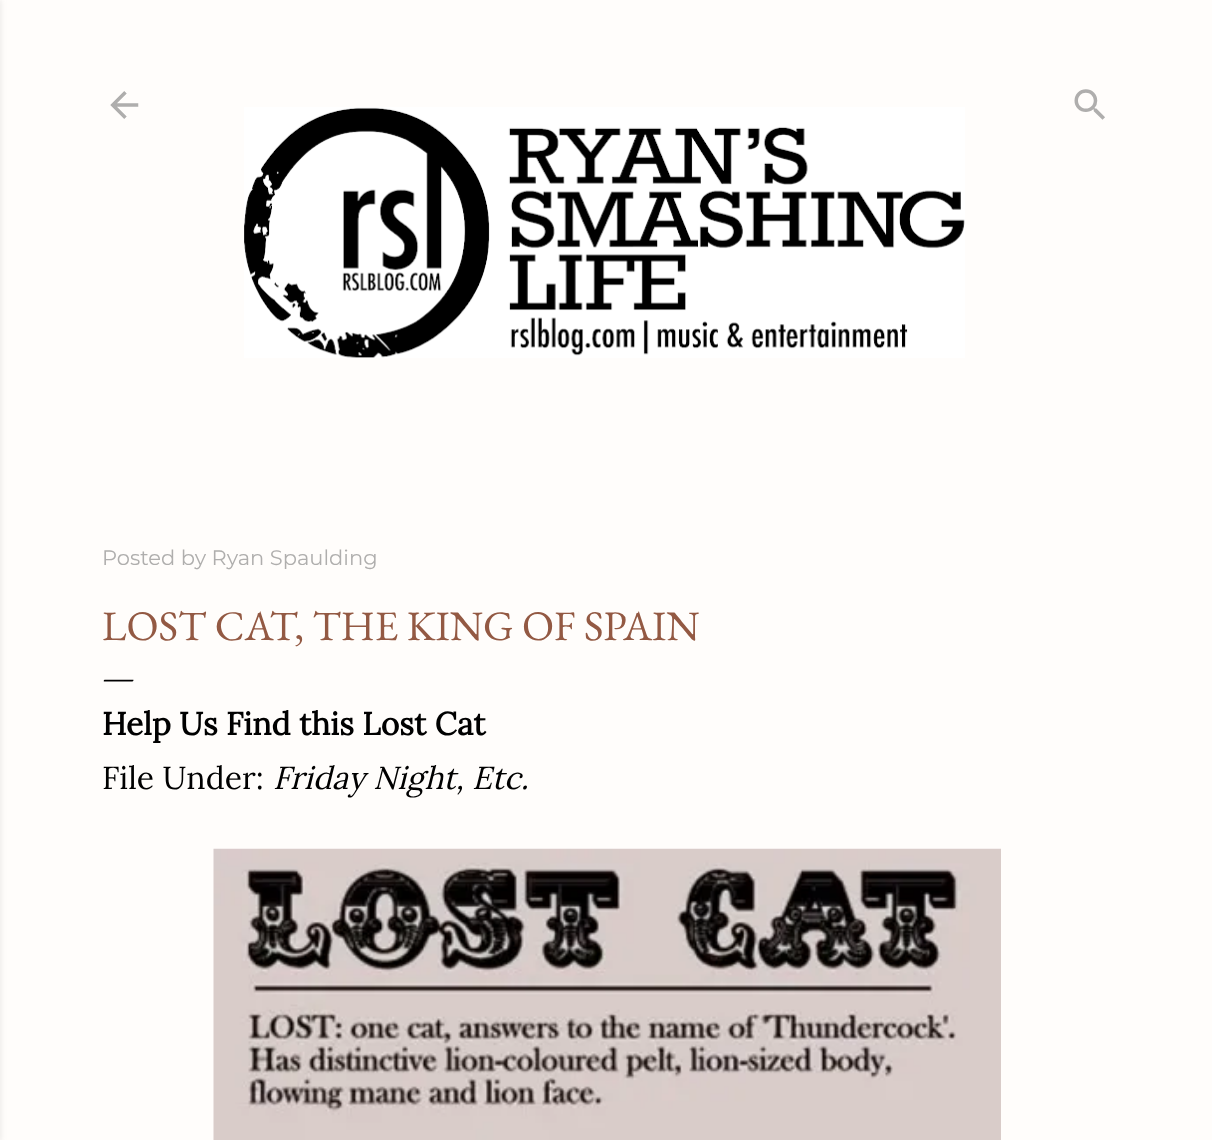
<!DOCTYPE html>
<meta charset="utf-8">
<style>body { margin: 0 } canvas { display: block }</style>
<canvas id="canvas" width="1212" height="1140"></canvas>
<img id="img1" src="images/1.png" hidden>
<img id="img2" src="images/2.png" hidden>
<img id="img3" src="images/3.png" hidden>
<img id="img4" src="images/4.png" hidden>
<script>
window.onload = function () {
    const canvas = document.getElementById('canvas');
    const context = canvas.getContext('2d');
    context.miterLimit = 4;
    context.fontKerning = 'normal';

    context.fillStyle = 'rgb(255, 253, 251)';
    context.fillRect(0, 0, 1212, 1140);
    context.fillStyle = 'rgba(106, 106, 106, 0.1)';
    context.filter = 'blur(2.5px)';
    context.beginPath();
    context.rect(-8, 0, 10, 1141);
    context.fill();
    context.filter = 'none';
    context.drawImage(document.getElementById('img1'), 110, 91, 29, 28);
    context.drawImage(document.getElementById('img2'), 244, 107, 721, 251);
    context.drawImage(document.getElementById('img3'), 1074, 89, 31, 31);
    context.drawImage(document.getElementById('img4'), 213, 848, 788, 292);
    context.font = '21px Montserrat';
    context.fillStyle = 'rgb(175, 174, 173)';
    context.fillText('Posted by Ryan Spaulding', 102, 565);
    context.font = '42px EB Garamond';
    context.fillStyle = 'rgb(147, 89, 67)';
    context.fillText('LOST CAT, THE KING OF SPAIN', 102, 640);
    context.font = '35px EB Garamond';
    context.fillStyle = 'rgb(0, 0, 0)';
    context.fillText('—', 102, 688);
    context.font = 'bold 31.8px Lora';
    context.fillText('Help Us Find this Lost Cat', 102, 735);
    context.font = '31.8px Lora';
    context.fillText('File Under:', 102, 789);
    context.font = 'italic 31.8px Lora';
    context.fillText('Friday Night, Etc.', 273, 789);
};
</script>
